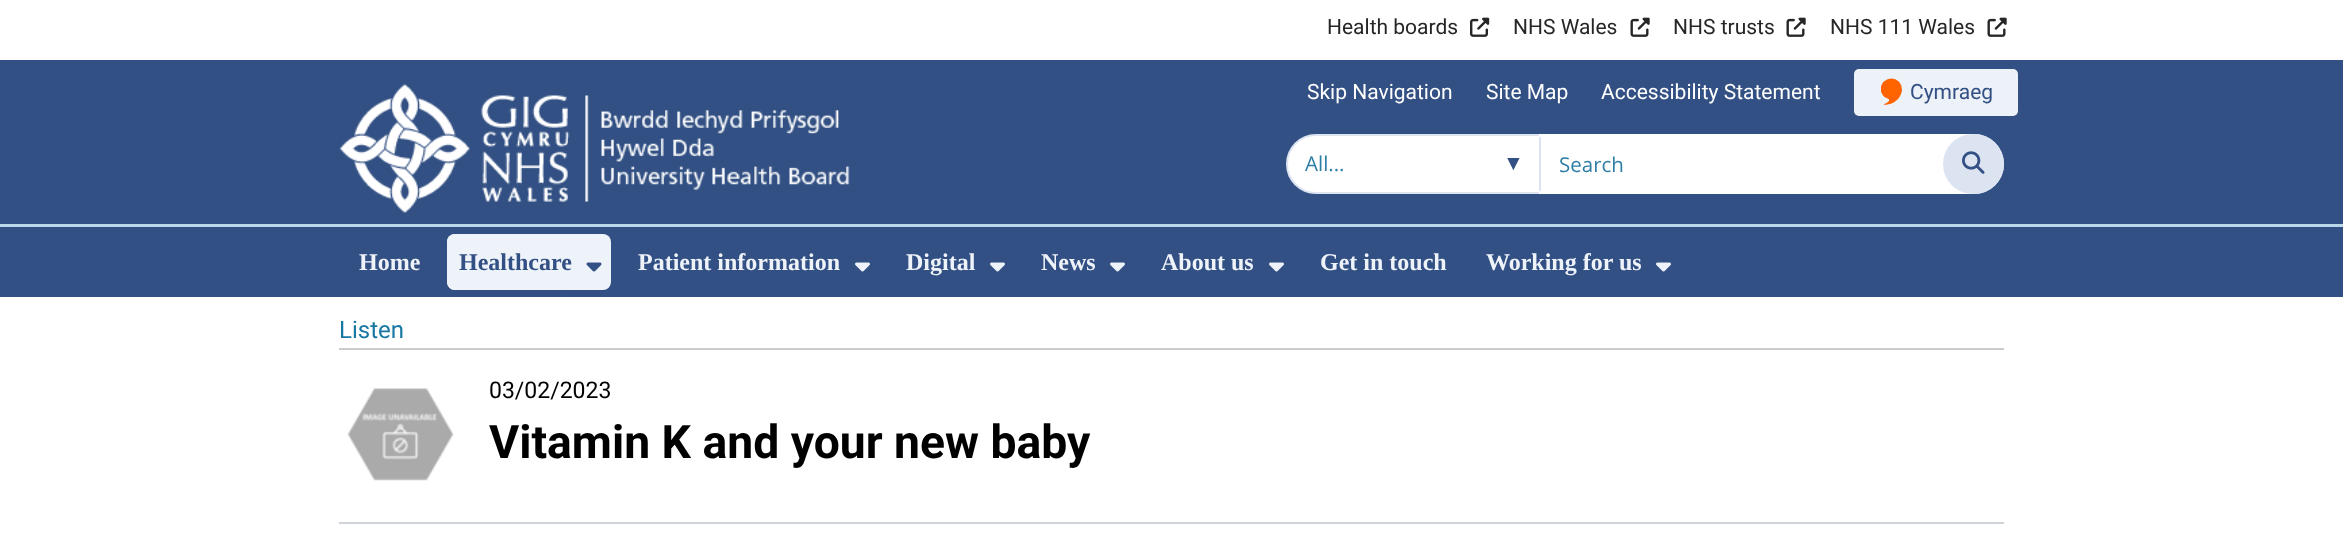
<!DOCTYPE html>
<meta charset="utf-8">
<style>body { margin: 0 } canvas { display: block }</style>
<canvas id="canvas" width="2343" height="555"></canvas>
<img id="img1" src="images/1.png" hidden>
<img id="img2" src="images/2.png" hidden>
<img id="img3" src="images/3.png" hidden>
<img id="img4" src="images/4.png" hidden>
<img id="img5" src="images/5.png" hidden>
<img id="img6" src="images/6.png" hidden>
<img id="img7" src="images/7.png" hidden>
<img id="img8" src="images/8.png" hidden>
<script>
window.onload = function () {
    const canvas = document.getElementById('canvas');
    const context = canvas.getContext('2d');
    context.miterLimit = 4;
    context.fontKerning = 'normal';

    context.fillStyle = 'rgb(255, 255, 255)';
    context.fillRect(0, 0, 2343, 555);
    context.fillStyle = 'rgb(50, 80, 131)';
    context.fillRect(0, 60, 2343, 164);
    context.fillStyle = 'rgb(189, 215, 234)';
    context.fillRect(0, 224, 2343, 3);
    context.drawImage(document.getElementById('img1'), 1470, 17, 20, 20);
    context.drawImage(document.getElementById('img2'), 1630, 17, 20, 20);
    context.drawImage(document.getElementById('img2'), 1786, 17, 20, 20);
    context.drawImage(document.getElementById('img2'), 1987, 17, 20, 20);
    context.fillStyle = 'rgb(237, 241, 248)';
    context.beginPath();
    context.roundRect(1854, 69, 164, 47, 5);
    context.fill();
    context.drawImage(document.getElementById('img3'), 1881, 78, 21, 27);
    context.drawImage(document.getElementById('img4'), 339, 84, 511, 129);
    context.fillStyle = 'rgb(255, 255, 255)';
    context.beginPath();
    context.roundRect(1287, 135, 253, 58, [29, 0, 0, 29]);
    context.fill();
    context.strokeStyle = 'rgb(220, 228, 242)';
    context.lineWidth = 2;
    context.stroke();
    context.beginPath();
    context.roundRect(1539, 134, 465, 60, [0, 30, 30, 0]);
    context.fill();
    context.fillStyle = 'rgb(220, 228, 242)';
    context.fillRect(1539, 137, 2, 54);
    context.beginPath();
    context.roundRect(1944, 135, 59, 58, 29);
    context.fill();
    context.stroke();
    context.drawImage(document.getElementById('img5'), 1962, 151, 23, 23);
    context.fillStyle = 'rgb(50, 80, 131)';
    context.fillRect(0, 227, 2343, 70);
    context.fillStyle = 'rgb(238, 242, 249)';
    context.beginPath();
    context.roundRect(447, 234, 164, 56, 8);
    context.fill();
    context.beginPath();
    context.roundRect(447, 234, 125, 56, 8);
    context.fill();
    context.drawImage(document.getElementById('img6'), 586, 262, 16, 10);
    context.drawImage(document.getElementById('img7'), 855, 262, 15, 10);
    context.drawImage(document.getElementById('img7'), 990, 262, 15, 10);
    context.drawImage(document.getElementById('img7'), 1110, 262, 15, 10);
    context.drawImage(document.getElementById('img7'), 1269, 262, 15, 10);
    context.drawImage(document.getElementById('img7'), 1656, 262, 15, 10);
    context.fillStyle = 'rgb(204, 204, 204)';
    context.fillRect(339, 348, 1665, 2);
    context.fillStyle = 'rgb(206, 212, 218)';
    context.fillRect(339, 522, 1665, 2);
    context.drawImage(document.getElementById('img8'), 347, 388, 107, 93);
    context.font = '21px Roboto';
    context.fillStyle = 'rgb(38, 38, 38)';
    context.fillText('Health boards', 1327, 34);
    context.fillText('NHS Wales', 1513, 34);
    context.fillText('NHS trusts', 1673, 34);
    context.fillText('NHS 111 Wales', 1830, 34);
    context.fillStyle = 'rgb(255, 255, 255)';
    context.fillText('Skip Navigation', 1307, 99);
    context.fillText('Site Map', 1486, 99);
    context.fillText('Accessibility Statement', 1601, 99);
    context.fillStyle = 'rgb(50, 80, 131)';
    context.fillText('Cymraeg', 1910, 99);
    context.font = '20.5px Open Sans';
    context.fillStyle = 'rgb(45, 126, 165)';
    context.fillText('All...', 1305, 171);
    context.font = '21px Liberation Sans';
    context.fillStyle = 'rgb(50, 80, 131)';
    context.fillText('▼', 1503, 170);
    context.font = '20.5px Open Sans';
    context.fillStyle = 'rgb(45, 126, 165)';
    context.fillText('Search', 1559, 172);
    context.font = 'bold 24px Liberation Serif';
    context.fillStyle = 'rgb(238, 242, 249)';
    context.fillText('Home', 359, 270);
    context.fillStyle = 'rgb(50, 80, 131)';
    context.fillText('Healthcare', 459, 270);
    context.fillStyle = 'rgb(238, 242, 249)';
    context.fillText('Patient information', 638, 270);
    context.fillText('Digital', 906, 270);
    context.fillText('News', 1041, 270);
    context.fillText('About us', 1161, 270);
    context.fillText('Get in touch', 1320, 270);
    context.fillText('Working for us', 1486, 270);
    context.font = '24px Roboto';
    context.fillStyle = 'rgb(25, 120, 163)';
    context.fillText('Listen', 339, 338);
    context.font = '23px Roboto';
    context.fillStyle = 'rgb(0, 0, 0)';
    context.fillText('03/02/2023', 489, 398);
    context.font = 'bold 46.25px Roboto';
    context.fillText('Vitamin K and your new baby', 489, 458);
};
</script>
